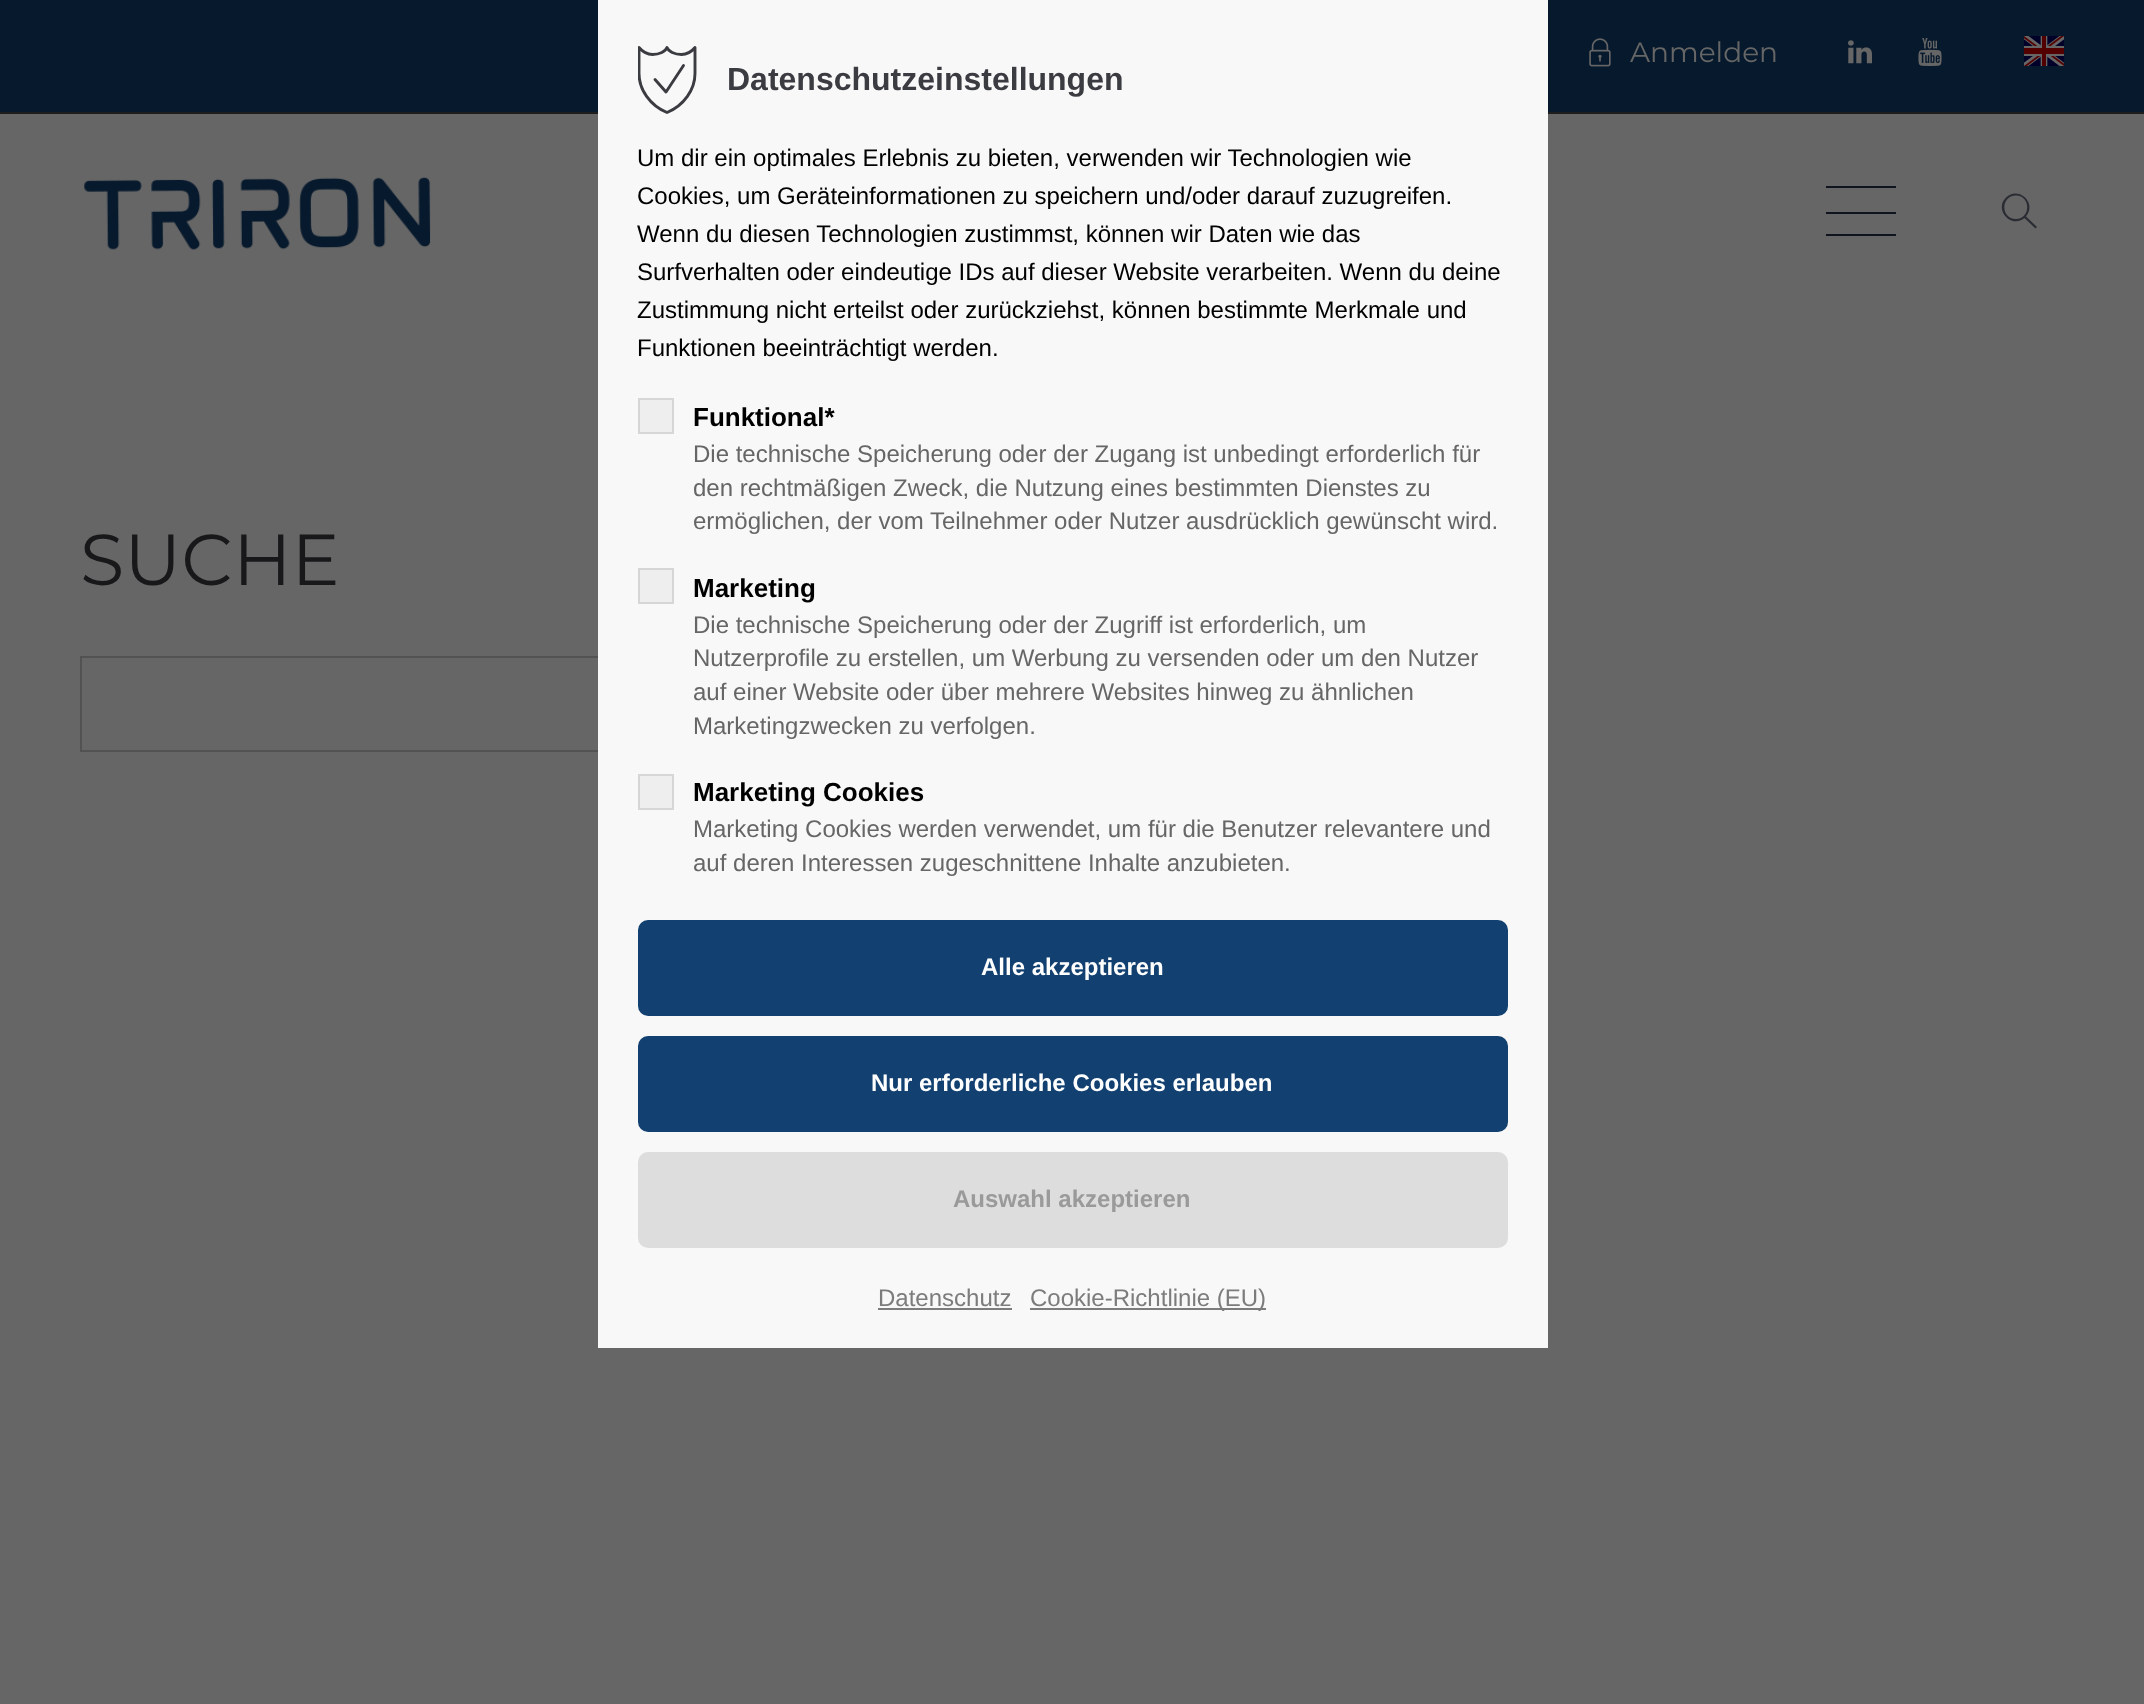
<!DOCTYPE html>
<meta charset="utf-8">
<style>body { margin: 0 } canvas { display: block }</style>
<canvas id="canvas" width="2144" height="1704"></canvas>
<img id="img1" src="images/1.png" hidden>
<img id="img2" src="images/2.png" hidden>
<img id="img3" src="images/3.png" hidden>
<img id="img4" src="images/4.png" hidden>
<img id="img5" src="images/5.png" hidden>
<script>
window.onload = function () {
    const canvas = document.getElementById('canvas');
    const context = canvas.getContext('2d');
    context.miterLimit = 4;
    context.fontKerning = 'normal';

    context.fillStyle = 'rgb(102, 102, 102)';
    context.fillRect(0, 0, 2144, 1704);
    context.fillStyle = 'rgb(7, 26, 45)';
    context.fillRect(0, 0, 2144, 112);
    context.fillStyle = 'rgb(29, 29, 29)';
    context.fillRect(0, 112, 2144, 2);
    context.drawImage(document.getElementById('img1'), 1589, 38, 22, 29);
    context.drawImage(document.getElementById('img2'), 1848, 40, 24, 24);
    context.drawImage(document.getElementById('img3'), 1918, 38, 24, 28);
    context.drawImage(document.getElementById('img4'), 2024, 36, 40, 30);
    context.drawImage(document.getElementById('img5'), 84, 177, 347, 73);
    context.fillStyle = 'rgb(16, 20, 31)';
    context.fillRect(1826, 212, 70, 2);
    context.fillRect(1826, 186, 70, 2);
    context.fillRect(1826, 234, 70, 2);
    context.fillStyle = 'rgb(42, 44, 52)';
    context.beginPath();
    context.moveTo(2037, 227);
    context.lineTo(2026, 216.5);
    context.bezierCurveTo(2037.5, 203, 2018.5, 185.5, 2006, 197.5);
    context.bezierCurveTo(1993.5, 210, 2011.5, 229, 2024.5, 218);
    context.lineTo(2035.5, 228.5);
    context.closePath();
    context.moveTo(2016, 219);
    context.bezierCurveTo(2000.5, 219, 2000.5, 195.5, 2016, 195.5);
    context.bezierCurveTo(2031, 195.5, 2031, 219, 2016, 219);
    context.closePath();
    context.fill();
    context.strokeStyle = 'rgb(82, 82, 82)';
    context.lineWidth = 2;
    context.strokeRect(81, 657, 890, 94);
    context.fillStyle = 'rgb(248, 248, 248)';
    context.fillRect(598, 0, 950, 1348);
    context.save();
    context.beginPath();
    context.rect(638, 46, 60, 68);
    context.clip();
    context.beginPath();
    context.moveTo(667, 112.5);
    context.bezierCurveTo(650, 105.5, 639, 89.5, 639, 73.5);
    context.lineTo(639, 47.5);
    context.bezierCurveTo(641.5, 50.5, 646.5, 54.5, 652.5, 54.5);
    context.bezierCurveTo(659.5, 54.5, 665.5, 51.5, 667, 47.5);
    context.bezierCurveTo(668.5, 51.5, 674.5, 54.5, 681.5, 54.5);
    context.bezierCurveTo(687.5, 54.5, 692.5, 50.5, 695, 47.5);
    context.lineTo(695, 73.5);
    context.bezierCurveTo(695, 89.5, 684, 105.5, 667, 112.5);
    context.closePath();
    context.strokeStyle = 'rgb(59, 60, 65)';
    context.lineWidth = 2.9;
    context.lineCap = 'round';
    context.lineJoin = 'round';
    context.stroke();
    context.restore();
    context.beginPath();
    context.moveTo(655, 79.5);
    context.lineTo(666, 92);
    context.lineTo(683.5, 65.5);
    context.strokeStyle = 'rgb(59, 60, 65)';
    context.lineWidth = 2.9;
    context.lineCap = 'round';
    context.lineJoin = 'round';
    context.stroke();
    context.fillStyle = 'rgb(238, 238, 238)';
    context.beginPath();
    context.rect(639, 399, 34, 34);
    context.fill();
    context.strokeStyle = 'rgb(214, 214, 214)';
    context.lineWidth = 2;
    context.lineJoin = 'miter';
    context.stroke();
    context.beginPath();
    context.rect(639, 569, 34, 34);
    context.fill();
    context.stroke();
    context.beginPath();
    context.rect(639, 775, 34, 34);
    context.fill();
    context.stroke();
    context.fillStyle = 'rgb(18, 64, 112)';
    context.beginPath();
    context.roundRect(638, 920, 870, 96, 10);
    context.fill();
    context.beginPath();
    context.roundRect(638, 1036, 870, 96, 10);
    context.fill();
    context.fillStyle = 'rgb(221, 221, 221)';
    context.beginPath();
    context.roundRect(638, 1152, 870, 96, 10);
    context.fill();
    context.fillStyle = 'rgb(124, 124, 124)';
    context.fillRect(878, 1308, 134, 2);
    context.fillRect(1030, 1308, 236, 2);
    context.font = '100 28px Montserrat';
    context.fillStyle = 'rgb(102, 102, 102)';
    context.fillText('Anmelden', 1630, 62);
    context.font = '100 72px Montserrat';
    context.fillStyle = 'rgb(24, 24, 26)';
    context.fillText('SUCHE', 80, 585);
    context.font = 'bold 32px Liberation Sans';
    context.fillStyle = 'rgb(59, 60, 66)';
    context.fillText('Datenschutzeinstellungen', 727, 90);
    context.font = '24px Liberation Sans';
    context.fillStyle = 'rgb(0, 0, 0)';
    context.fillText('Um dir ein optimales Erlebnis zu bieten, verwenden wir Technologien wie', 637, 166);
    context.fillText('Cookies, um Geräteinformationen zu speichern und/oder darauf zuzugreifen.', 637, 204);
    context.fillText('Wenn du diesen Technologien zustimmst, können wir Daten wie das', 637, 242);
    context.fillText('Surfverhalten oder eindeutige IDs auf dieser Website verarbeiten. Wenn du deine', 637, 280);
    context.fillText('Zustimmung nicht erteilst oder zurückziehst, können bestimmte Merkmale und', 637, 318);
    context.fillText('Funktionen beeinträchtigt werden.', 637, 356);
    context.font = 'bold 26px Liberation Sans';
    context.fillText('Funktional*', 693, 426);
    context.font = '24px Liberation Sans';
    context.fillStyle = 'rgb(102, 102, 102)';
    context.fillText('Die technische Speicherung oder der Zugang ist unbedingt erforderlich für', 693, 462);
    context.fillText('den rechtmäßigen Zweck, die Nutzung eines bestimmten Dienstes zu', 693, 496);
    context.fillText('ermöglichen, der vom Teilnehmer oder Nutzer ausdrücklich gewünscht wird.', 693, 529);
    context.font = 'bold 26px Liberation Sans';
    context.fillStyle = 'rgb(0, 0, 0)';
    context.fillText('Marketing', 693, 597);
    context.font = '24px Liberation Sans';
    context.fillStyle = 'rgb(102, 102, 102)';
    context.fillText('Die technische Speicherung oder der Zugriff ist erforderlich, um', 693, 633);
    context.fillText('Nutzerprofile zu erstellen, um Werbung zu versenden oder um den Nutzer', 693, 666);
    context.fillText('auf einer Website oder über mehrere Websites hinweg zu ähnlichen', 693, 700);
    context.fillText('Marketingzwecken zu verfolgen.', 693, 734);
    context.font = 'bold 26px Liberation Sans';
    context.fillStyle = 'rgb(0, 0, 0)';
    context.fillText('Marketing Cookies', 693, 801);
    context.font = '24px Liberation Sans';
    context.fillStyle = 'rgb(102, 102, 102)';
    context.fillText('Marketing Cookies werden verwendet, um für die Benutzer relevantere und', 693, 837);
    context.fillText('auf deren Interessen zugeschnittene Inhalte anzubieten.', 693, 871);
    context.font = 'bold 24px Liberation Sans';
    context.fillStyle = 'rgb(255, 255, 255)';
    context.fillText('Alle akzeptieren', 981, 975);
    context.fillText('Nur erforderliche Cookies erlauben', 871, 1091);
    context.fillStyle = 'rgb(154, 154, 154)';
    context.fillText('Auswahl akzeptieren', 953, 1207);
    context.font = '24px Liberation Sans';
    context.fillStyle = 'rgb(124, 124, 124)';
    context.fillText('Datenschutz', 878, 1306);
    context.fillText('Cookie-Richtlinie (EU)', 1030, 1306);
};
</script>
